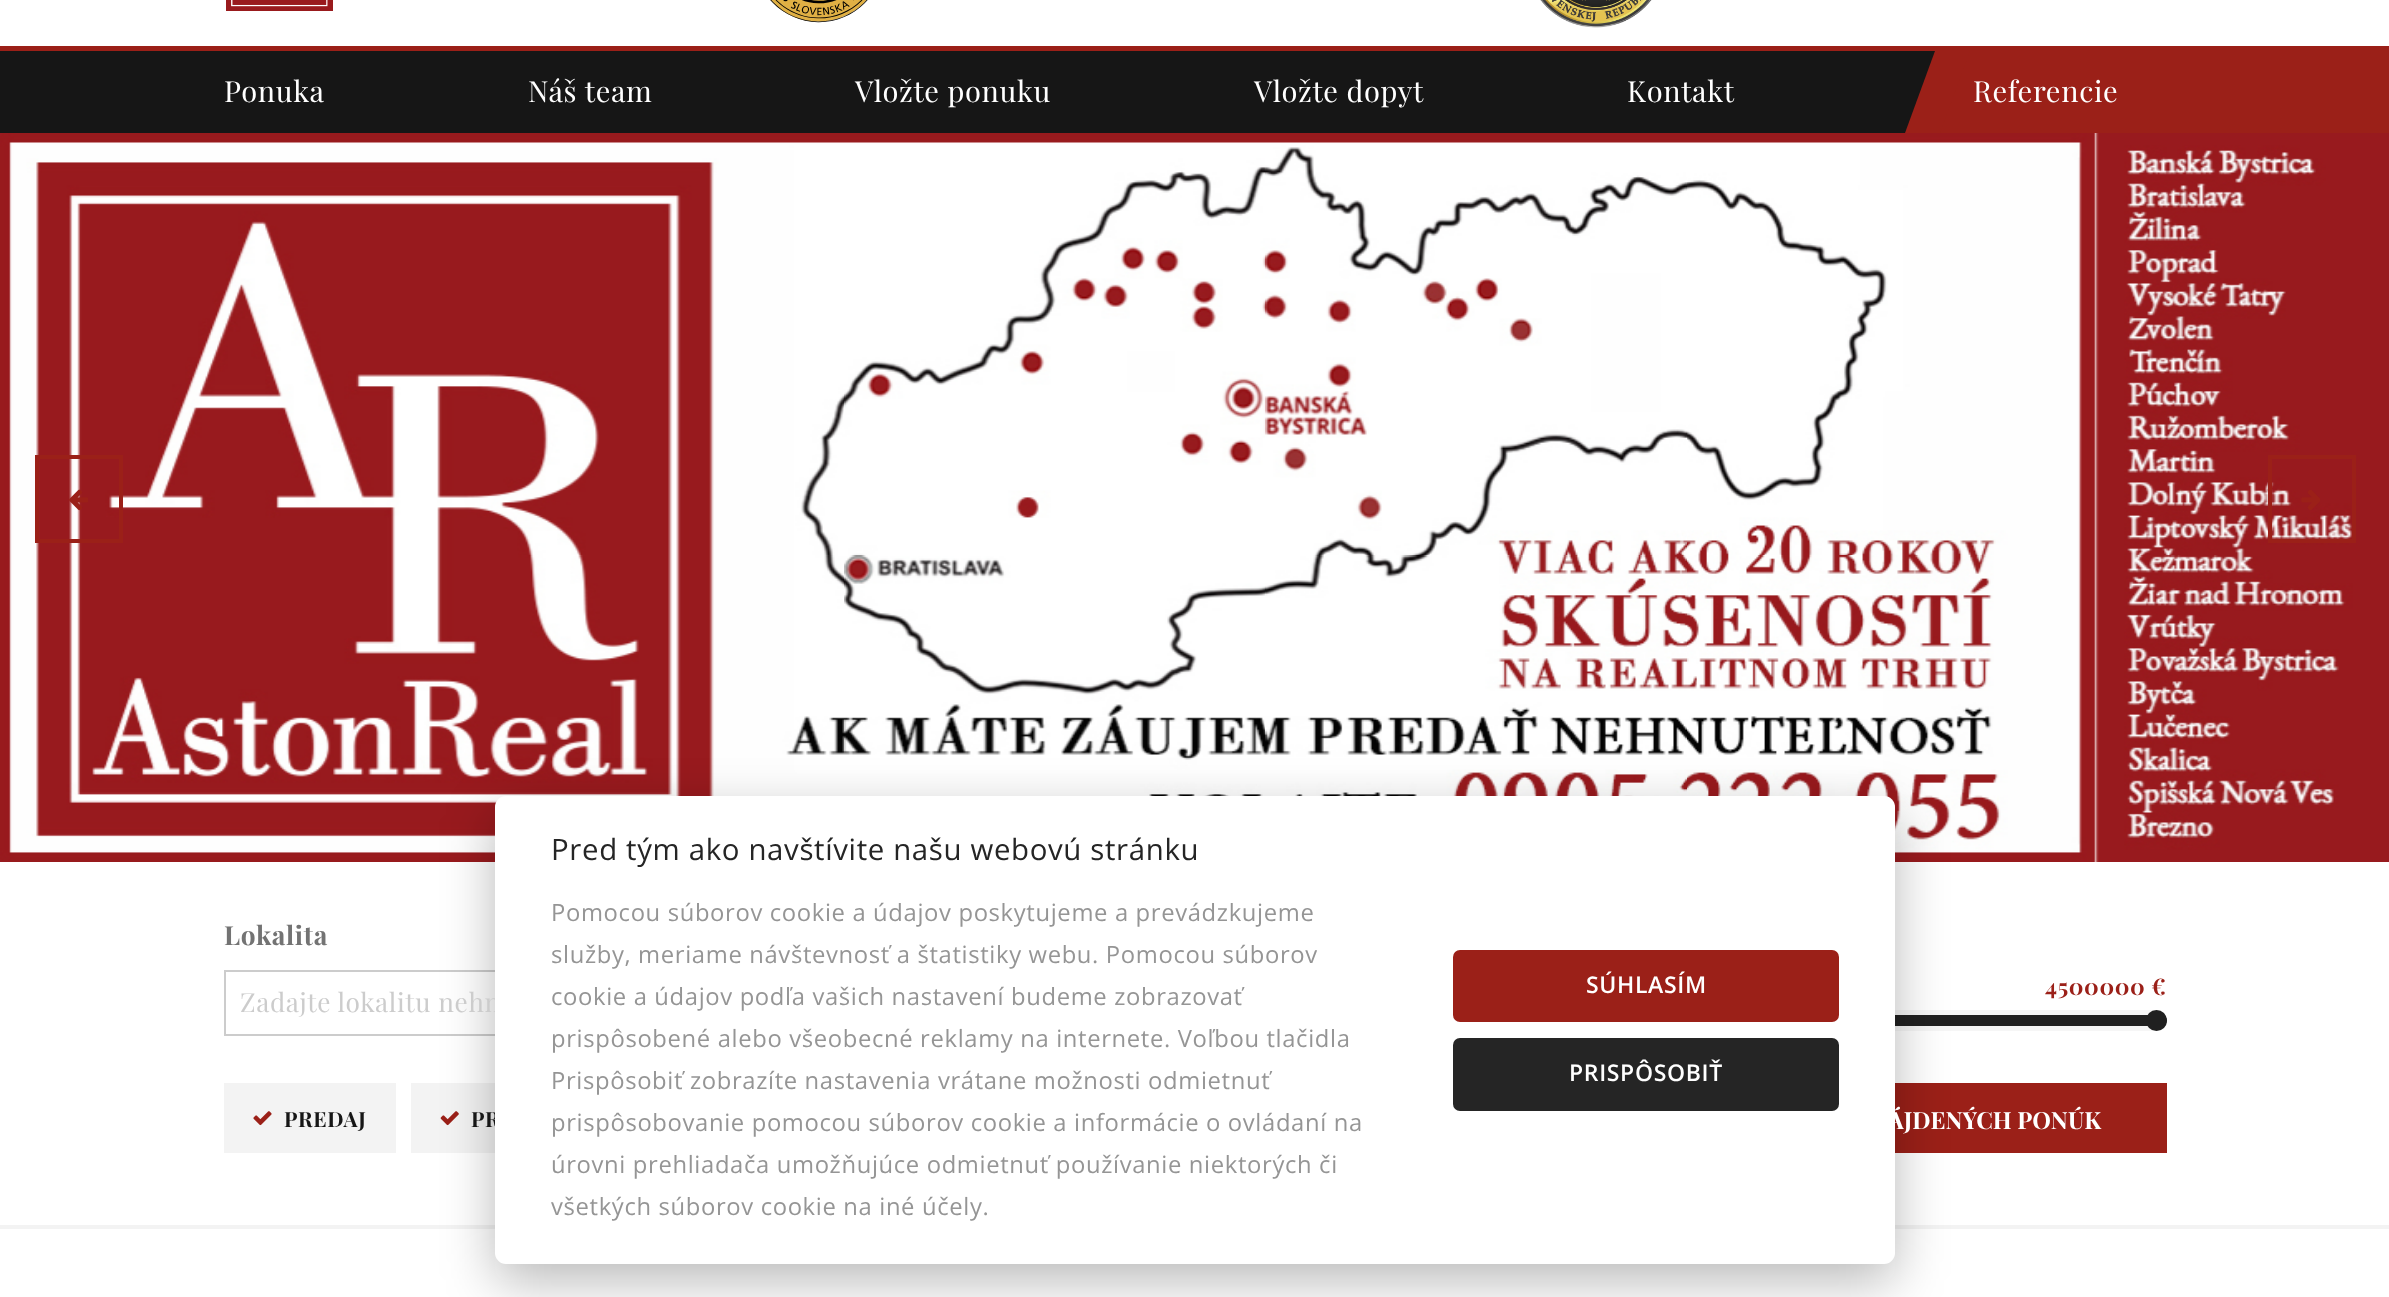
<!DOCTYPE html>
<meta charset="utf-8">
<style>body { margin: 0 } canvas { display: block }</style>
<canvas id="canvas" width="2389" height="1297"></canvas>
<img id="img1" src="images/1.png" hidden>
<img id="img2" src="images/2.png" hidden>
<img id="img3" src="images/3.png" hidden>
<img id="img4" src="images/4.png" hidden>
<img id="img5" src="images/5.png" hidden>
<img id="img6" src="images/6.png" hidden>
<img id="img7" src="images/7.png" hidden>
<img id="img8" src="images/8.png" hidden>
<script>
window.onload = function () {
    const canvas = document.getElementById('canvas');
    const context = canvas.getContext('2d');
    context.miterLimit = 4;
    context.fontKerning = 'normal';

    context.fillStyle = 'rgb(255, 255, 255)';
    context.fillRect(0, 0, 2389, 1297);
    context.drawImage(document.getElementById('img1'), 226, 0, 107, 11);
    context.drawImage(document.getElementById('img2'), 770, 0, 98, 23);
    context.drawImage(document.getElementById('img3'), 1540, 0, 112, 28);
    context.fillStyle = 'rgb(22, 22, 22)';
    context.fillRect(0, 51, 1935, 82);
    context.fillStyle = 'rgb(155, 32, 24)';
    context.fillRect(0, 46, 2389, 5);
    context.fillRect(1940, 51, 449, 82);
    context.beginPath();
    context.moveTo(1935, 51);
    context.lineTo(1970, 51);
    context.lineTo(1940, 133);
    context.lineTo(1905, 133);
    context.closePath();
    context.fill();
    context.drawImage(document.getElementById('img4'), 0, 133, 2389, 729);
    context.strokeStyle = 'rgb(155, 32, 24)';
    context.lineWidth = 4;
    context.strokeRect(37, 457, 84, 84);
    context.drawImage(document.getElementById('img5'), 69, 489, 19, 22);
    context.strokeRect(2270, 457, 84, 84);
    context.drawImage(document.getElementById('img6'), 2301, 490, 19, 20);
    context.fillStyle = 'rgb(243, 243, 243)';
    context.fillRect(0, 1225, 2389, 4);
    context.strokeStyle = 'rgb(204, 204, 204)';
    context.lineWidth = 2;
    context.strokeRect(225, 971, 444, 64);
    context.fillStyle = 'rgb(246, 246, 246)';
    context.beginPath();
    context.roundRect(1720, 1010, 447, 21, 10.5);
    context.fill();
    context.fillStyle = 'rgb(32, 32, 32)';
    context.beginPath();
    context.roundRect(1720, 1015, 447, 11, 5.5);
    context.fill();
    context.beginPath();
    context.arc(2156.5, 1020.5, 10.5, 0, 2 * Math.PI);
    context.fill();
    context.fillStyle = 'rgb(243, 243, 243)';
    context.fillRect(224, 1083, 172, 70);
    context.drawImage(document.getElementById('img7'), 253, 1111, 19, 15);
    context.fillRect(411, 1083, 84, 70);
    context.drawImage(document.getElementById('img8'), 440, 1111, 19, 15);
    context.fillStyle = 'rgb(155, 32, 24)';
    context.fillRect(1895, 1083, 272, 70);
    context.fillStyle = 'rgba(2, 2, 3, 0.28)';
    context.filter = 'blur(26px)';
    context.beginPath();
    context.roundRect(495, 814, 1400, 467, 11);
    context.fill();
    context.filter = 'none';
    context.letterSpacing = '0.65px';
    context.font = '29px Playfair Display';
    context.fillStyle = 'rgb(255, 255, 255)';
    context.fillText('Ponuka', 224, 102);
    context.fillText('Náš team', 528, 102);
    context.fillText('Vložte ponuku', 855, 102);
    context.fillText('Vložte dopyt', 1254, 102);
    context.fillText('Kontakt', 1627, 102);
    context.fillText('Referencie', 1973, 102);
    context.font = 'bold 26.25px Playfair Display';
    context.fillStyle = 'rgb(115, 115, 115)';
    context.fillText('Lokalita', 224, 945);
    context.font = '26.25px Playfair Display';
    context.fillStyle = 'rgb(204, 204, 204)';
    context.fillText('Zadajte lokalitu nehn', 240, 1012);
    context.font = 'bold 22.75px Playfair Display';
    context.fillStyle = 'rgb(155, 32, 24)';
    context.fillText('4500000 €', 2045, 995);
    context.font = 'bold 21px Playfair Display';
    context.fillStyle = 'rgb(22, 22, 22)';
    context.fillText('PREDAJ', 284, 1127);
    context.fillText('PR', 471, 1127);
    context.letterSpacing = '0px';
    context.font = 'bold 23.6px Playfair Display';
    context.fillStyle = 'rgb(255, 255, 255)';
    context.fillText('ÁJDENÝCH PONÚK', 1888, 1129);
    context.beginPath();
    context.roundRect(495, 796, 1400, 468, 11);
    context.fill();
    context.letterSpacing = '0.65px';
    context.font = '29.4px Open Sans';
    context.fillStyle = 'rgb(37, 37, 37)';
    context.fillText('Pred tým ako navštívite našu webovú stránku', 551, 860);
    context.font = '23.8px Open Sans';
    context.fillStyle = 'rgb(149, 149, 149)';
    context.fillText('Pomocou súborov cookie a údajov poskytujeme a prevádzkujeme', 551, 921);
    context.fillText('služby, meriame návštevnosť a štatistiky webu. Pomocou súborov', 551, 963);
    context.fillText('cookie a údajov podľa vašich nastavení budeme zobrazovať', 551, 1005);
    context.fillText('prispôsobené alebo všeobecné reklamy na internete. Voľbou tlačidla', 551, 1047);
    context.fillText('Prispôsobiť zobrazíte nastavenia vrátane možnosti odmietnuť', 551, 1089);
    context.fillText('prispôsobovanie pomocou súborov cookie a informácie o ovládaní na', 551, 1131);
    context.fillText('úrovni prehliadača umožňujúce odmietnuť používanie niektorých či', 551, 1173);
    context.fillText('všetkých súborov cookie na iné účely.', 551, 1215);
    context.fillStyle = 'rgb(155, 32, 24)';
    context.beginPath();
    context.roundRect(1453, 950, 386, 72, 7);
    context.fill();
    context.font = '600 23px Open Sans';
    context.fillStyle = 'rgb(255, 255, 255)';
    context.fillText('SÚHLASÍM', 1586, 993);
    context.fillStyle = 'rgb(37, 37, 37)';
    context.beginPath();
    context.roundRect(1453, 1038, 386, 73, 7);
    context.fill();
    context.fillStyle = 'rgb(255, 255, 255)';
    context.fillText('PRISPÔSOBIŤ', 1569, 1081);
};
</script>
